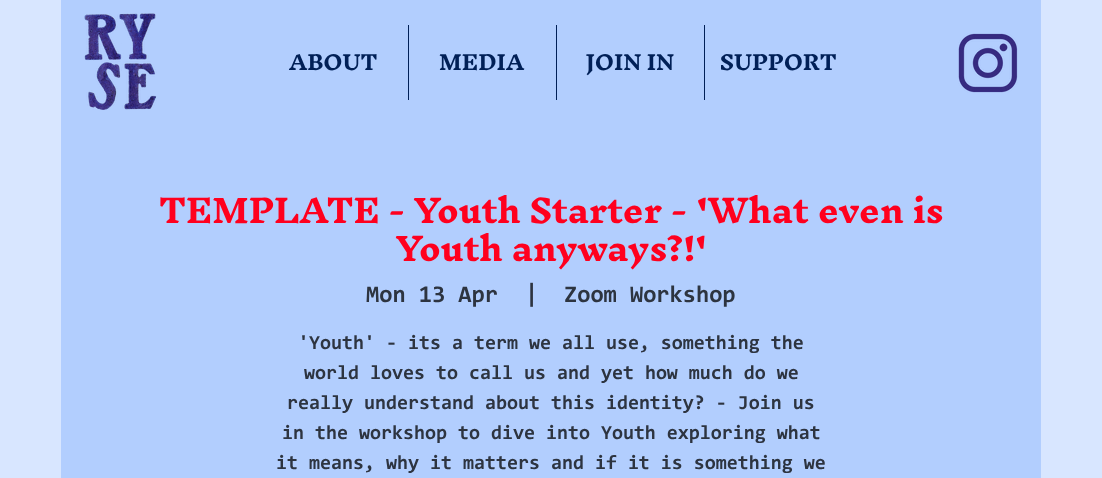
<!DOCTYPE html>
<meta charset="utf-8">
<style>body { margin: 0 } canvas { display: block }</style>
<canvas id="canvas" width="1102" height="478"></canvas>
<img id="img1" src="images/1.png" hidden>
<img id="img2" src="images/2.png" hidden>
<script>
window.onload = function () {
    const canvas = document.getElementById('canvas');
    const context = canvas.getContext('2d');
    context.miterLimit = 4;
    context.fontKerning = 'normal';

    context.fillStyle = 'rgb(216, 230, 255)';
    context.fillRect(0, 0, 1102, 478);
    context.fillStyle = 'rgb(178, 206, 254)';
    context.fillRect(61, 0, 980, 478);
    context.drawImage(document.getElementById('img1'), 84, 13, 73, 97);
    context.fillStyle = 'rgb(1, 32, 87)';
    context.fillRect(408, 25, 1, 75);
    context.fillRect(556, 25, 1, 75);
    context.fillRect(704, 25, 1, 75);
    context.drawImage(document.getElementById('img2'), 958, 33, 60, 60);
    context.font = 'bold 20px Inknut Antiqua';
    context.fillText('ABOUT', 289, 70);
    context.fillText('MEDIA', 439, 70);
    context.fillText('JOIN IN', 586, 70);
    context.fillText('SUPPORT', 720, 70);
    context.font = 'bold 32px Inknut Antiqua';
    context.fillStyle = 'rgb(255, 0, 30)';
    context.fillText('TEMPLATE - Youth Starter - \'What even is', 159, 223);
    context.fillText('Youth anyways?!\'', 396, 261);
    context.font = 'bold 24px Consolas';
    context.fillStyle = 'rgb(45, 52, 64)';
    context.fillText('Mon 13 Apr', 366, 302);
    context.fillText('|', 525, 302);
    context.fillText('Zoom Workshop', 564, 302);
    context.font = 'bold 20px Consolas';
    context.fillText('\'Youth\' - its a term we all use, something the', 298, 349);
    context.fillText('world loves to call us and yet how much do we', 304, 379);
    context.fillText('really understand about this identity? - Join us', 287, 409);
    context.fillText('in the workshop to dive into Youth exploring what', 282, 439);
    context.fillText('it means, why it matters and if it is something we', 276, 469);
};
</script>
